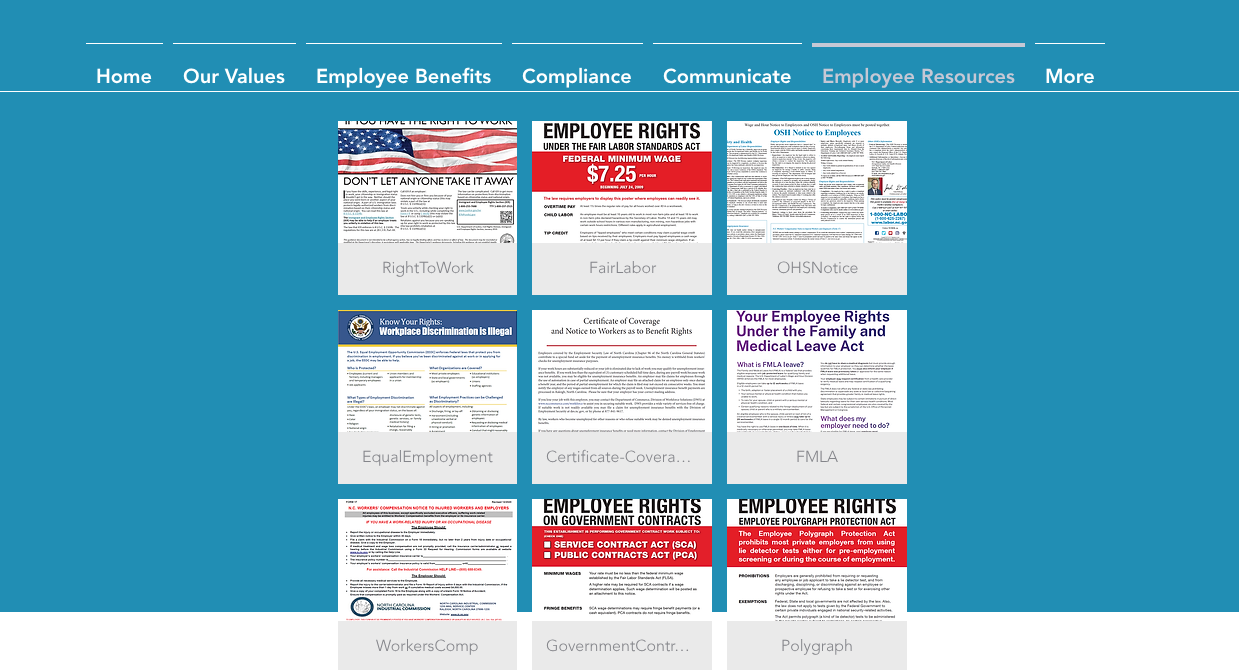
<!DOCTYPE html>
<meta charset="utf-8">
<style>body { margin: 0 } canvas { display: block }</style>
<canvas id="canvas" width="1239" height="670"></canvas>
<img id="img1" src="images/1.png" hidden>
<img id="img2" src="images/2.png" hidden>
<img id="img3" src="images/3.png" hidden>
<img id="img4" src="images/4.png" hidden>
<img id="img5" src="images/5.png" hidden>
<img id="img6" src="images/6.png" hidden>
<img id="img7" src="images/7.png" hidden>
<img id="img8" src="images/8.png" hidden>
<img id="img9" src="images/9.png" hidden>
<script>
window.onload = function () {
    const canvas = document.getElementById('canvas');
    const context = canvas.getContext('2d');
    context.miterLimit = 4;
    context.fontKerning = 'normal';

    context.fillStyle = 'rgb(255, 255, 255)';
    context.fillRect(0, 0, 1239, 670);
    context.fillStyle = 'rgb(33, 142, 180)';
    context.fillRect(0, 0, 1239, 91);
    context.fillStyle = 'rgb(255, 255, 255)';
    context.fillRect(86, 43, 77, 1);
    context.fillRect(173, 43, 123, 1);
    context.fillRect(306, 43, 196, 1);
    context.fillRect(512, 43, 131, 1);
    context.fillRect(653, 43, 149, 1);
    context.fillStyle = 'rgb(198, 200, 213)';
    context.fillRect(812, 43, 213, 4);
    context.fillStyle = 'rgb(255, 255, 255)';
    context.fillRect(1035, 43, 70, 1);
    context.fillStyle = 'rgb(33, 142, 180)';
    context.fillRect(0, 92, 1239, 520);
    context.drawImage(document.getElementById('img1'), 338, 121, 179, 122);
    context.fillStyle = 'rgb(234, 234, 234)';
    context.fillRect(338, 243, 179, 52);
    context.drawImage(document.getElementById('img2'), 532, 121, 180, 122);
    context.fillRect(532, 243, 180, 52);
    context.drawImage(document.getElementById('img3'), 727, 121, 180, 122);
    context.fillRect(727, 243, 180, 52);
    context.drawImage(document.getElementById('img4'), 338, 310, 179, 122);
    context.fillRect(338, 432, 179, 52);
    context.drawImage(document.getElementById('img5'), 532, 310, 180, 122);
    context.fillRect(532, 432, 180, 52);
    context.drawImage(document.getElementById('img6'), 727, 310, 180, 122);
    context.fillRect(727, 432, 180, 52);
    context.drawImage(document.getElementById('img7'), 338, 499, 179, 122);
    context.fillRect(338, 621, 179, 49);
    context.drawImage(document.getElementById('img8'), 532, 499, 180, 122);
    context.fillRect(532, 621, 180, 49);
    context.drawImage(document.getElementById('img9'), 727, 499, 180, 122);
    context.fillRect(727, 621, 180, 49);
    context.font = '900 20px "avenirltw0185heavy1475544"';
    context.fillStyle = 'rgb(255, 255, 255)';
    context.fillText('Home', 96, 83);
    context.fillText('Our Values', 183, 83);
    context.fillText('Employee Benefits', 316, 83);
    context.fillText('Compliance', 522, 83);
    context.fillText('Communicate', 663, 83);
    context.fillStyle = 'rgb(198, 200, 213)';
    context.fillText('Employee Resources', 822, 83);
    context.fillStyle = 'rgb(255, 255, 255)';
    context.fillText('More', 1045, 83);
    context.font = '300 16px "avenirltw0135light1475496"';
    context.fillStyle = 'rgb(132, 133, 138)';
    context.fillText('RightToWork', 382, 273);
    context.fillText('FairLabor', 589, 273);
    context.fillText('OHSNotice', 777, 273);
    context.fillText('EqualEmployment', 362, 462);
    context.fillText('Certificate-Covera…', 546, 462);
    context.fillText('FMLA', 796, 462);
    context.fillText('WorkersComp', 376, 651);
    context.fillText('GovernmentContr…', 546, 651);
    context.fillText('Polygraph', 781, 651);
};
</script>
